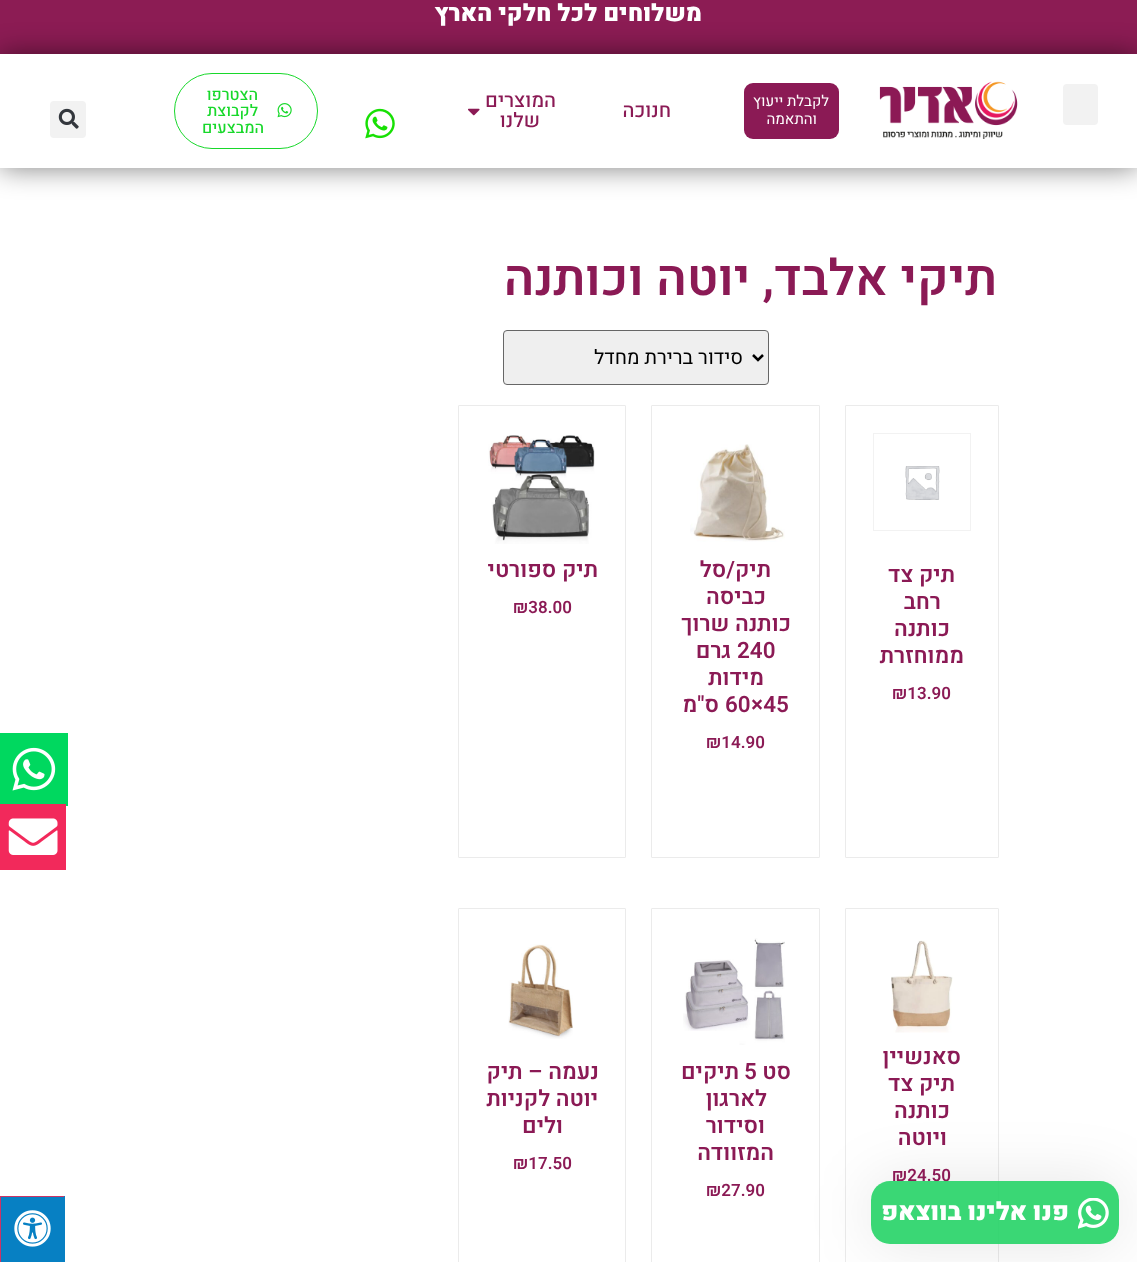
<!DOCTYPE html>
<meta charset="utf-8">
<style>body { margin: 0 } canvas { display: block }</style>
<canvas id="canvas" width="1137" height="1262"></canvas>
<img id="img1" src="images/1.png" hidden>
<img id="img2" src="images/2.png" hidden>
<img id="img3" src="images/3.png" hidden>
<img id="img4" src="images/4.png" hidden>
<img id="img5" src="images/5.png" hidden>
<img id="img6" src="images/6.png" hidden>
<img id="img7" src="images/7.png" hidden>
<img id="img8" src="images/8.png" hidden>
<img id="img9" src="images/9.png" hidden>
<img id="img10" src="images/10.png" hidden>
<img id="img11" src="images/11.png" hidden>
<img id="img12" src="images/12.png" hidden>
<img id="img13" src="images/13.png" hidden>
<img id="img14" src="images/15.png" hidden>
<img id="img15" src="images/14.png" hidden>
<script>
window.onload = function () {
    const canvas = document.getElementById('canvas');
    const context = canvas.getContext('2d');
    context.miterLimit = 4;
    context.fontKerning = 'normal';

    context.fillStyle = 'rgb(255, 255, 255)';
    context.fillRect(0, 0, 1137, 1262);
    context.fillStyle = 'rgb(140, 28, 84)';
    context.fillRect(0, 0, 1137, 54);
    context.fillStyle = 'rgba(0, 0, 0, 0.5)';
    context.filter = 'blur(14px)';
    context.beginPath();
    context.rect(0, 54, 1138, 114);
    context.fill();
    context.filter = 'none';
    context.fillStyle = 'rgb(255, 255, 255)';
    context.fillRect(0, 54, 1137, 114);
    context.fillStyle = 'rgb(242, 242, 242)';
    context.beginPath();
    context.roundRect(1063, 84, 35, 41, 4);
    context.fill();
    context.drawImage(document.getElementById('img1'), 879, 81, 139, 58);
    context.fillStyle = 'rgb(139, 26, 85)';
    context.beginPath();
    context.roundRect(744, 83, 95, 56, 9);
    context.fill();
    context.drawImage(document.getElementById('img2'), 468, 108, 12, 8);
    context.drawImage(document.getElementById('img3'), 365, 108, 30, 31);
    context.beginPath();
    context.roundRect(174.5, 73.5, 143, 75, 37.5);
    context.strokeStyle = 'rgb(24, 216, 43)';
    context.stroke();
    context.drawImage(document.getElementById('img4'), 277, 103, 15, 15);
    context.fillStyle = 'rgb(242, 242, 242)';
    context.beginPath();
    context.roundRect(50, 101, 36, 37, 4);
    context.fill();
    context.drawImage(document.getElementById('img5'), 58, 108, 21, 21);
    context.fillStyle = 'rgb(0, 216, 95)';
    context.fillRect(0, 733, 68, 73);
    context.drawImage(document.getElementById('img6'), 12, 747, 44, 44);
    context.fillStyle = 'rgb(242, 41, 91)';
    context.fillRect(0, 804, 66, 66);
    context.drawImage(document.getElementById('img7'), 8, 818, 50, 37);
    context.fillStyle = 'rgb(239, 239, 239)';
    context.beginPath();
    context.roundRect(503.5, 330.5, 265, 54, 3.5);
    context.fill();
    context.strokeStyle = 'rgb(102, 102, 102)';
    context.stroke();
    context.beginPath();
    context.moveTo(753, 355);
    context.lineTo(758, 360);
    context.lineTo(763, 355);
    context.strokeStyle = 'rgb(0, 0, 0)';
    context.lineWidth = 2.5;
    context.stroke();
    context.beginPath();
    context.roundRect(845.5, 405.5, 153, 452, 0.5);
    context.strokeStyle = 'rgb(235, 235, 235)';
    context.lineWidth = 1;
    context.stroke();
    context.strokeStyle = 'rgb(242, 242, 242)';
    context.strokeRect(873.5, 433.5, 97, 97);
    context.drawImage(document.getElementById('img8'), 905, 466, 35, 34);
    context.beginPath();
    context.roundRect(651.5, 405.5, 168, 452, 0.5);
    context.strokeStyle = 'rgb(235, 235, 235)';
    context.stroke();
    context.drawImage(document.getElementById('img9'), 690, 444, 95, 98);
    context.beginPath();
    context.roundRect(458.5, 405.5, 167, 452, 0.5);
    context.stroke();
    context.drawImage(document.getElementById('img10'), 488, 435, 107, 109);
    context.beginPath();
    context.roundRect(845.5, 908.5, 153, 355, 0.5);
    context.stroke();
    context.drawImage(document.getElementById('img11'), 891, 940, 62, 93);
    context.beginPath();
    context.roundRect(651.5, 908.5, 168, 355, 0.5);
    context.stroke();
    context.drawImage(document.getElementById('img12'), 683, 938, 102, 107);
    context.beginPath();
    context.roundRect(458.5, 908.5, 167, 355, 0.5);
    context.stroke();
    context.drawImage(document.getElementById('img13'), 508, 944, 65, 95);
    context.save();
    context.beginPath();
    context.moveTo(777, 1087);
    context.lineTo(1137, 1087);
    context.lineTo(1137, 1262);
    context.lineTo(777, 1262);
    context.closePath();
    context.moveTo(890, 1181);
    context.lineTo(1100, 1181);
    context.bezierCurveTo(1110.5, 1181, 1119, 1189.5, 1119, 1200);
    context.lineTo(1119, 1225);
    context.bezierCurveTo(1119, 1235.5, 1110.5, 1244, 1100, 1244);
    context.lineTo(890, 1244);
    context.bezierCurveTo(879.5, 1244, 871, 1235.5, 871, 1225);
    context.lineTo(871, 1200);
    context.bezierCurveTo(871, 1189.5, 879.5, 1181, 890, 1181);
    context.closePath();
    context.clip('evenodd');
    context.fillStyle = 'rgba(0, 0, 0, 0.1)';
    context.filter = 'blur(31px)';
    context.beginPath();
    context.roundRect(871, 1181, 248, 63, 19);
    context.fill();
    context.filter = 'none';
    context.restore();
    context.fillStyle = 'rgb(7, 128, 195)';
    context.fillRect(1, 1197, 63, 65);
    context.fillStyle = 'rgb(204, 51, 102)';
    context.fillRect(0, 1196, 65, 1);
    context.fillStyle = 'rgb(7, 128, 195)';
    context.fillRect(64, 1196, 1, 66);
    context.fillStyle = 'rgb(204, 51, 102)';
    context.fillRect(0, 1196, 1, 66);
    context.drawImage(document.getElementById('img14'), 14, 1210, 37, 37);
    context.direction = 'rtl';
    context.font = '900 23.75px Heebo';
    context.fillStyle = 'rgb(255, 255, 255)';
    context.fillText('משלוחים לכל חלקי הארץ', 702, 21);
    context.font = '15px Heebo';
    context.fillText('לקבלת ייעוץ', 829, 106);
    context.fillText('והתאמה', 817, 124);
    context.font = '500 20px Heebo';
    context.fillStyle = 'rgb(139, 26, 85)';
    context.fillText('חנוכה', 671, 117);
    context.fillText('המוצרים', 556, 107);
    context.fillText('שלנו', 540, 127);
    context.font = '500 16px Heebo';
    context.fillStyle = 'rgb(24, 216, 43)';
    context.fillText('הצטרפו', 258, 100);
    context.fillText('לקבוצת', 258, 116);
    context.fillText('המבצעים', 264, 133);
    context.font = '600 50px Heebo';
    context.fillStyle = 'rgb(139, 26, 85)';
    context.fillText('תיקי אלבד, יוטה וכותנה', 997, 295);
    context.font = '20px Heebo';
    context.fillStyle = 'rgb(0, 0, 0)';
    context.fillText('סידור ברירת מחדל', 743, 364);
    context.font = '600 22.5px Heebo';
    context.fillStyle = 'rgb(139, 26, 85)';
    context.fillText('תיק צד', 955, 582);
    context.fillText('רחב', 941, 609);
    context.fillText('כותנה', 950, 636);
    context.fillText('ממוחזרת', 964, 663);
    context.direction = 'ltr';
    context.font = '600 17px Heebo';
    context.fillText('₪13.90', 892, 699);
    context.direction = 'rtl';
    context.font = '600 22.5px Heebo';
    context.fillText('תיק/סל', 771, 577);
    context.fillText('כביסה', 766, 604);
    context.fillText('כותנה שרוך', 791, 631);
    context.direction = 'ltr';
    context.fillText('240', 737, 658);
    context.direction = 'rtl';
    context.fillText('גרם', 731, 658);
    context.fillText('מידות', 764, 685);
    context.direction = 'ltr';
    context.fillText('60×45', 725, 712);
    context.direction = 'rtl';
    context.fillText('ס"מ', 719, 712);
    context.direction = 'ltr';
    context.font = '600 17px Heebo';
    context.fillText('₪14.90', 706, 748);
    context.direction = 'rtl';
    context.font = '600 22.5px Heebo';
    context.fillText('תיק ספורטי', 598, 577);
    context.direction = 'ltr';
    context.font = '600 17px Heebo';
    context.fillText('₪38.00', 513, 613);
    context.direction = 'rtl';
    context.font = '600 22.5px Heebo';
    context.fillText('סאנשיין', 961, 1064);
    context.fillText('תיק צד', 955, 1091);
    context.fillText('כותנה', 950, 1118);
    context.fillText('ויוטה', 947, 1145);
    context.direction = 'ltr';
    context.font = '600 17px Heebo';
    context.fillText('₪24.50', 892, 1181);
    context.direction = 'rtl';
    context.font = '600 22.5px Heebo';
    context.fillText('סט', 791, 1079);
    context.direction = 'ltr';
    context.fillText('5', 744, 1079);
    context.direction = 'rtl';
    context.fillText('תיקים', 739, 1079);
    context.fillText('לארגון', 767, 1106);
    context.fillText('וסידור', 765, 1133);
    context.fillText('המזוודה', 774, 1160);
    context.direction = 'ltr';
    context.font = '600 17px Heebo';
    context.fillText('₪27.90', 706, 1196);
    context.direction = 'rtl';
    context.font = '600 22.5px Heebo';
    context.fillText('נעמה – תיק', 599, 1079);
    context.fillText('יוטה לקניות', 598, 1106);
    context.fillText('ולים', 563, 1133);
    context.direction = 'ltr';
    context.font = '600 17px Heebo';
    context.fillText('₪17.50', 513, 1169);
    context.fillStyle = 'rgba(37, 211, 102, 0.9)';
    context.beginPath();
    context.roundRect(871, 1181, 248, 63, 19);
    context.fill();
    context.drawImage(document.getElementById('img15'), 1078, 1198, 31, 31);
    context.direction = 'rtl';
    context.font = '900 25px Heebo';
    context.fillStyle = 'rgb(255, 255, 255)';
    context.fillText('פנו אלינו בווצאפ', 1069, 1220);
};
</script>
